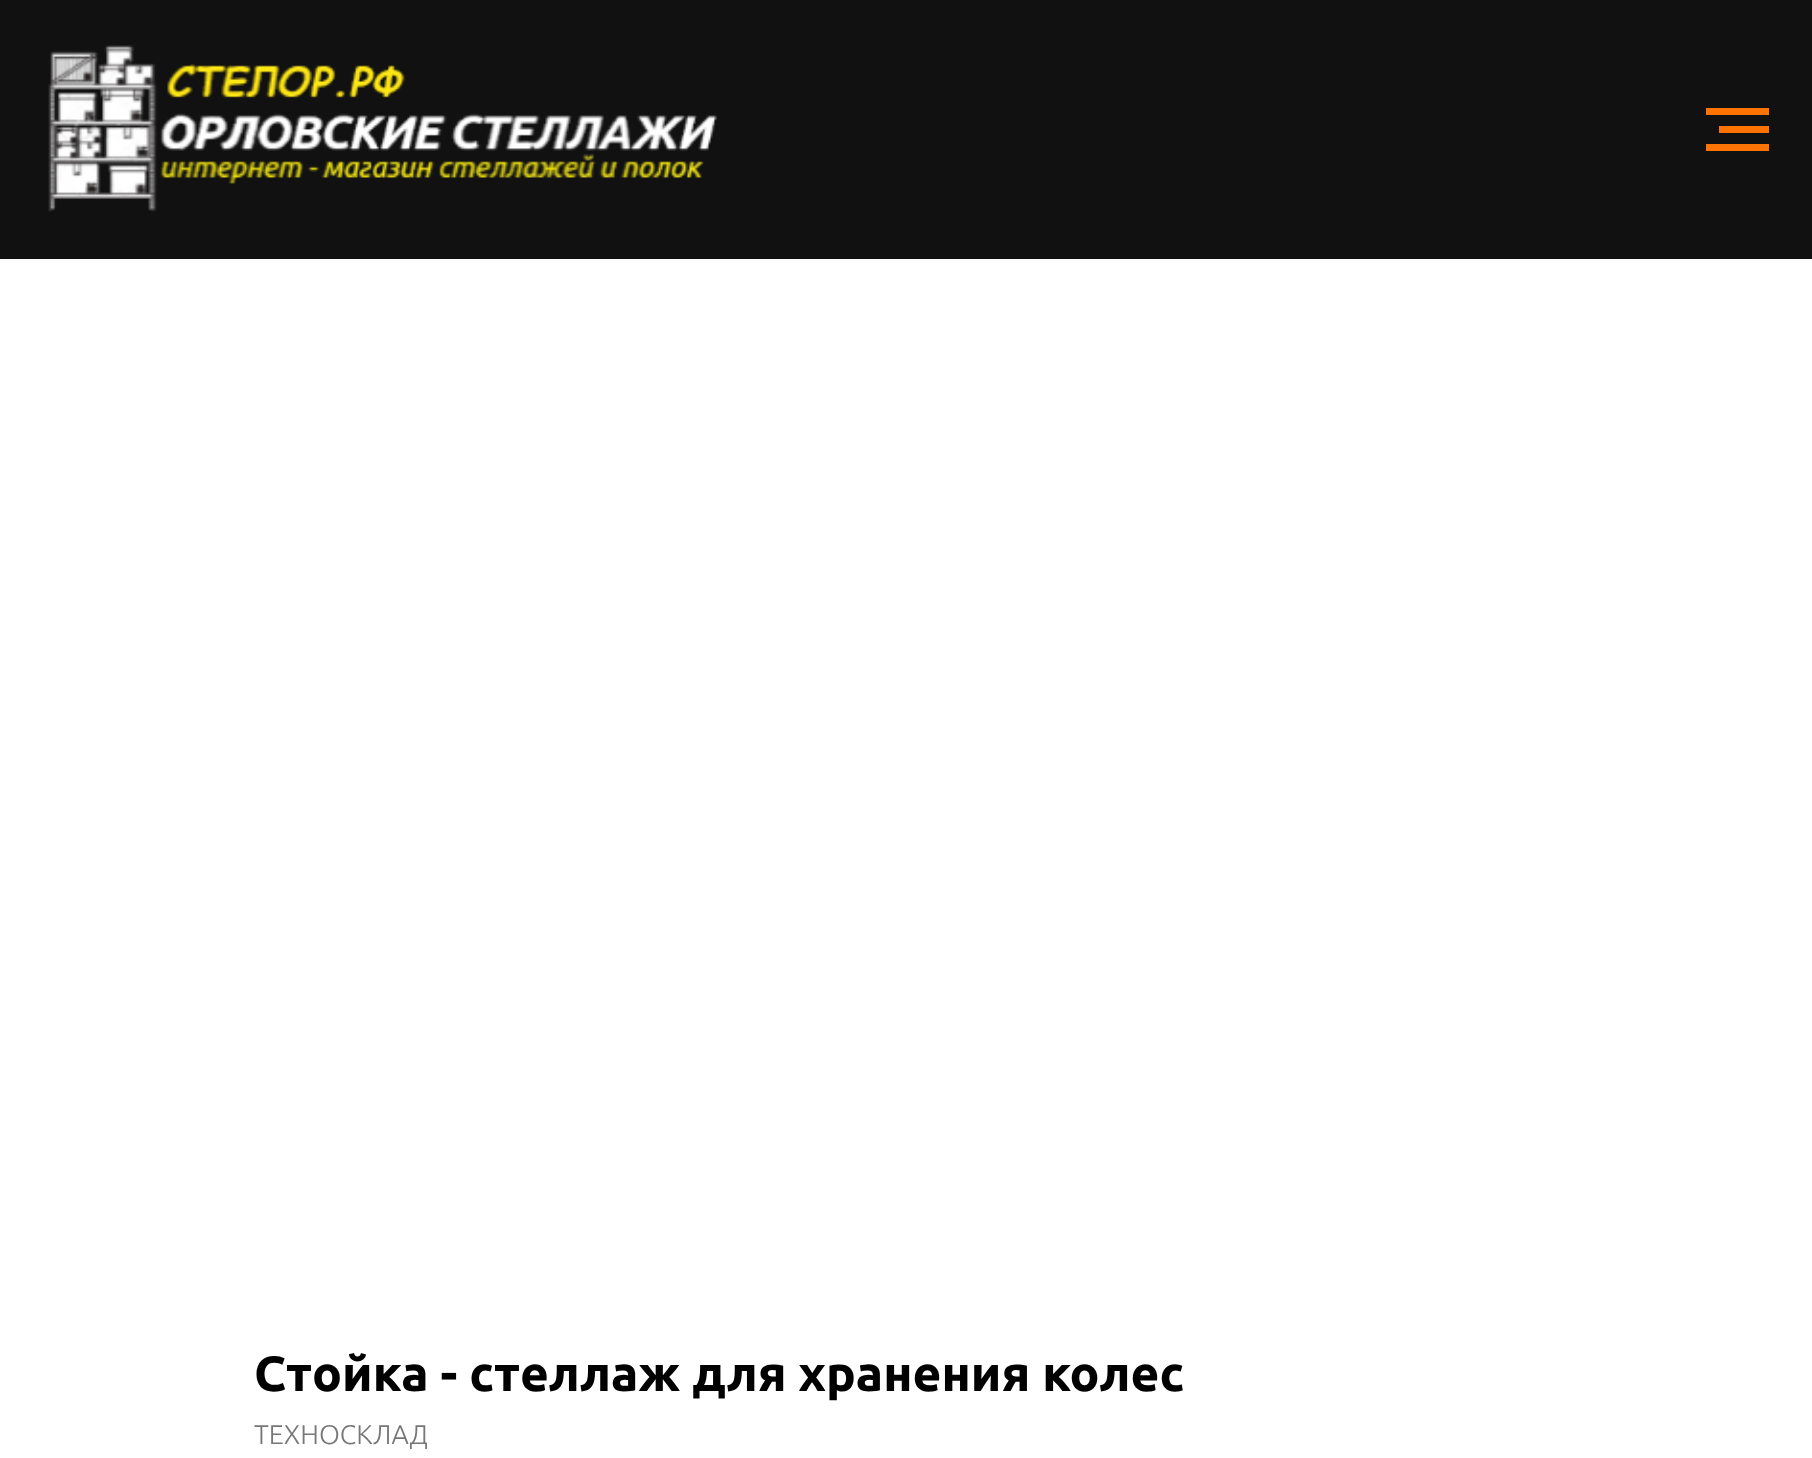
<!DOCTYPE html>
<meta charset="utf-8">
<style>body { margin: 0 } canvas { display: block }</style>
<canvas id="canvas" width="1812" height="1458"></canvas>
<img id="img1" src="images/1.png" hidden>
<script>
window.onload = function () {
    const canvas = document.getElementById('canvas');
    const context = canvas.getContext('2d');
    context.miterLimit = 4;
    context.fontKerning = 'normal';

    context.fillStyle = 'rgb(255, 255, 255)';
    context.fillRect(0, 0, 1812, 1458);
    context.fillStyle = 'rgb(17, 17, 17)';
    context.fillRect(0, 0, 1812, 259);
    context.drawImage(document.getElementById('img1'), 48, 45, 669, 167);
    context.fillStyle = 'rgb(255, 116, 0)';
    context.fillRect(1706, 108, 63, 7);
    context.fillRect(1719, 126, 50, 7);
    context.fillRect(1706, 144, 63, 7);
    context.font = 'bold 49.5px Ubuntu';
    context.fillStyle = 'rgb(0, 0, 0)';
    context.fillText('Стойка - стеллаж для хранения колес', 254, 1391);
    context.font = '300 27px Ubuntu';
    context.fillStyle = 'rgb(119, 119, 119)';
    context.fillText('ТЕХНОСКЛАД', 254, 1444);
};
</script>
